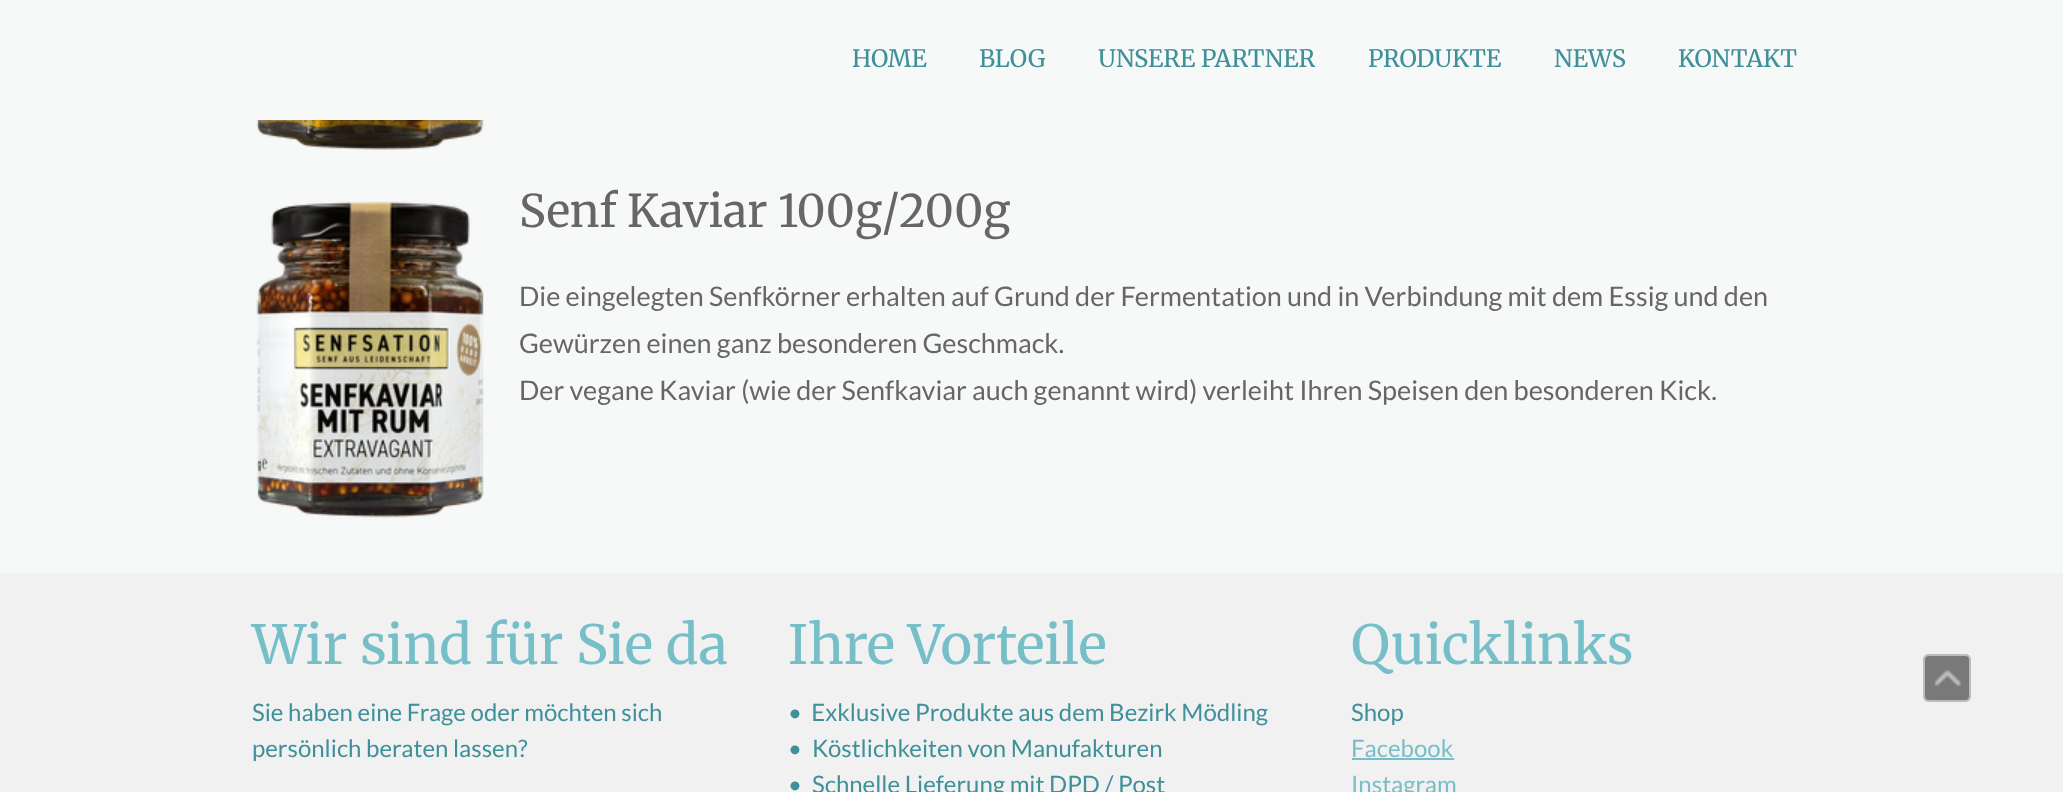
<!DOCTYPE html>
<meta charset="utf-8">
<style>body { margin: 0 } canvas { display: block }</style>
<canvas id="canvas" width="2063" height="792"></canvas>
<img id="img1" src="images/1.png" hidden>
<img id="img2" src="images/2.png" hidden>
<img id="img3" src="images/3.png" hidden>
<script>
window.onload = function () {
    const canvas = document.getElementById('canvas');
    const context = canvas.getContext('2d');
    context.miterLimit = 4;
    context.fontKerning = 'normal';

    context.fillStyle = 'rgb(247, 248, 248)';
    context.fillRect(0, 0, 2063, 792);
    context.drawImage(document.getElementById('img1'), 256, 120, 228, 30);
    context.drawImage(document.getElementById('img2'), 256, 201, 228, 317);
    context.fillStyle = 'rgb(241, 241, 241)';
    context.fillRect(0, 573, 2063, 219);
    context.fillStyle = 'rgb(118, 191, 200)';
    context.fillRect(1352, 758, 102, 2);
    context.fillStyle = 'rgb(121, 121, 121)';
    context.beginPath();
    context.roundRect(1923, 654, 48, 48, 6);
    context.fill();
    context.beginPath();
    context.roundRect(1924, 655, 46, 46, 5);
    context.strokeStyle = 'rgba(255, 255, 255, 0.5)';
    context.lineWidth = 2;
    context.stroke();
    context.drawImage(document.getElementById('img3'), 1934, 670, 27, 17);
    context.font = '300 24px Merriweather';
    context.fillStyle = 'rgb(62, 144, 154)';
    context.fillText('HOME', 852, 67);
    context.fillText('BLOG', 979, 67);
    context.fillText('UNSERE PARTNER', 1098, 67);
    context.fillText('PRODUKTE', 1368, 67);
    context.fillText('NEWS', 1554, 67);
    context.fillText('KONTAKT', 1678, 67);
    context.font = '300 45px Merriweather';
    context.fillStyle = 'rgb(102, 102, 102)';
    context.fillText('Senf Kaviar 100g/200g', 519, 227);
    context.font = '27px Lato';
    context.fillText('Die eingelegten Senfkörner erhalten auf Grund der Fermentation und in Verbindung mit dem Essig und den', 519, 306);
    context.fillText('Gewürzen einen ganz besonderen Geschmack.', 519, 353);
    context.fillText('Der vegane Kaviar (wie der Senfkaviar auch genannt wird) verleiht Ihren Speisen den besonderen Kick.', 519, 400);
    context.font = '300 54px Merriweather';
    context.fillStyle = 'rgb(118, 191, 200)';
    context.fillText('Wir sind für Sie da', 252, 664);
    context.font = '24px Lato';
    context.fillStyle = 'rgb(62, 144, 154)';
    context.fillText('Sie haben eine Frage oder möchten sich', 252, 721);
    context.fillText('persönlich beraten lassen?', 252, 757);
    context.font = '300 54px Merriweather';
    context.fillStyle = 'rgb(118, 191, 200)';
    context.fillText('Ihre Vorteile', 788, 664);
    context.font = '24px Lato';
    context.fillStyle = 'rgb(62, 144, 154)';
    context.fillText('•  Exklusive Produkte aus dem Bezirk Mödling', 788, 721);
    context.fillText('•', 788, 757);
    context.fillText('Köstlichkeiten von Manufakturen', 812, 757);
    context.fillText('•', 788, 793);
    context.fillText('Schnelle Lieferung mit DPD / Post', 812, 793);
    context.font = '300 54px Merriweather';
    context.fillStyle = 'rgb(118, 191, 200)';
    context.fillText('Quicklinks', 1351, 664);
    context.font = '24px Lato';
    context.fillStyle = 'rgb(62, 144, 154)';
    context.fillText('Shop', 1351, 721);
    context.fillStyle = 'rgb(118, 191, 200)';
    context.fillText('Facebook', 1351, 757);
    context.fillText('Instagram', 1351, 793);
};
</script>
